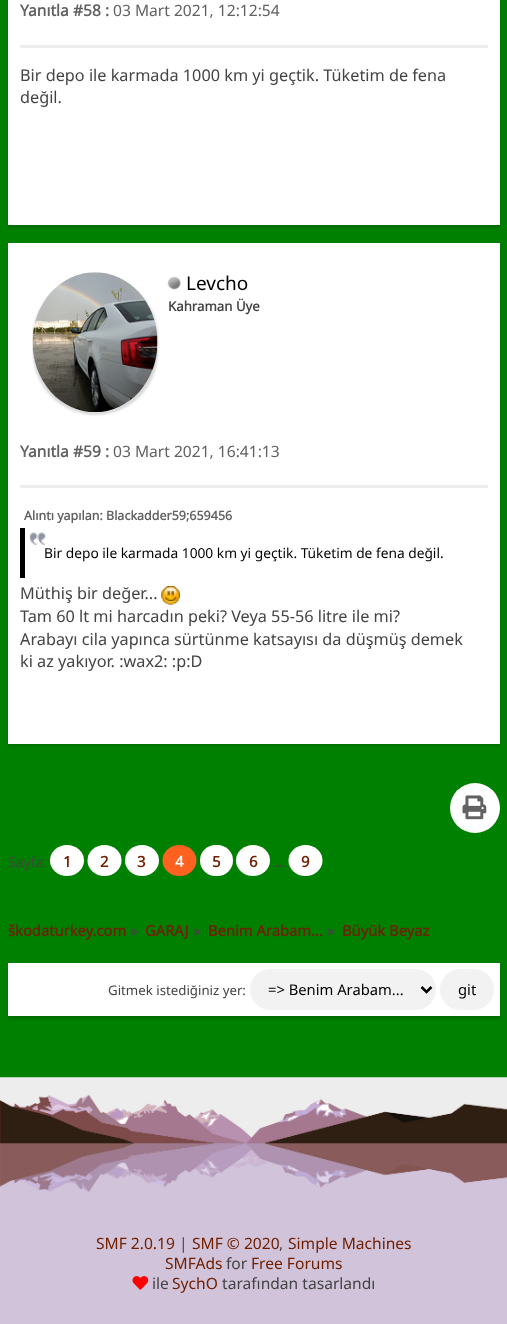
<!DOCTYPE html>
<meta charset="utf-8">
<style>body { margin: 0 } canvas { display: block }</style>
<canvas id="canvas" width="507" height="1324"></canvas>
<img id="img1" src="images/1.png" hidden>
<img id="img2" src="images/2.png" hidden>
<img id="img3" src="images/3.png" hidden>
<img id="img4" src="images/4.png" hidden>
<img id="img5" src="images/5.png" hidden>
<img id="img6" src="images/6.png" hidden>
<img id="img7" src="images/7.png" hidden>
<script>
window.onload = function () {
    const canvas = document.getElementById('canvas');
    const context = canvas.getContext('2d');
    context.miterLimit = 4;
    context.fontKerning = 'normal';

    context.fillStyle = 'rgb(0, 128, 0)';
    context.fillRect(0, 0, 507, 1324);
    context.fillStyle = 'rgba(0, 0, 0, 0.15)';
    context.filter = 'blur(1px)';
    context.beginPath();
    context.rect(8, -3, 492, 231);
    context.fill();
    context.filter = 'none';
    context.fillStyle = 'rgb(255, 255, 255)';
    context.fillRect(8, 0, 492, 225);
    context.fillStyle = 'rgb(237, 237, 237)';
    context.fillRect(20, 45, 468, 3);
    context.fillStyle = 'rgba(0, 0, 0, 0.15)';
    context.filter = 'blur(1px)';
    context.beginPath();
    context.rect(8, 245, 492, 501);
    context.fill();
    context.filter = 'none';
    context.fillStyle = 'rgb(255, 255, 255)';
    context.fillRect(8, 243, 492, 501);
    context.fillStyle = 'rgba(0, 0, 0, 0.15)';
    context.filter = 'blur(1px)';
    context.beginPath();
    context.roundRect(33, 275, 125, 140, 62.5);
    context.fill();
    context.filter = 'none';
    context.fillStyle = 'rgb(255, 255, 255)';
    context.beginPath();
    context.ellipse(95, 342.5, 62.5, 70, 0, 0, 2 * Math.PI);
    context.fill();
    context.drawImage(document.getElementById('img1'), 32, 272, 126, 141);
    context.drawImage(document.getElementById('img2'), 167, 276, 14, 14);
    context.fillStyle = 'rgb(237, 237, 237)';
    context.fillRect(20, 485, 468, 3);
    context.drawImage(document.getElementById('img3'), 29, 532, 17, 14);
    context.fillStyle = 'rgb(0, 0, 0)';
    context.fillRect(20, 528, 5, 50);
    context.drawImage(document.getElementById('img4'), 161, 586, 19, 19);
    context.fillStyle = 'rgb(255, 255, 255)';
    context.beginPath();
    context.arc(475, 808, 25, 0, 2 * Math.PI);
    context.fill();
    context.drawImage(document.getElementById('img5'), 462, 795, 25, 25);
    context.beginPath();
    context.ellipse(67, 860.5, 17, 15.5, 0, 0, 2 * Math.PI);
    context.fill();
    context.beginPath();
    context.ellipse(104.5, 860.5, 17, 15.5, 0, 0, 2 * Math.PI);
    context.fill();
    context.beginPath();
    context.ellipse(142, 860.5, 17, 15.5, 0, 0, 2 * Math.PI);
    context.fill();
    context.fillStyle = 'rgb(255, 97, 32)';
    context.beginPath();
    context.ellipse(179.5, 860.5, 17, 15.5, 0, 0, 2 * Math.PI);
    context.fill();
    context.fillStyle = 'rgb(255, 255, 255)';
    context.beginPath();
    context.roundRect(200, 845, 33, 31, 15.5);
    context.fill();
    context.beginPath();
    context.ellipse(253, 860.5, 17, 15.5, 0, 0, 2 * Math.PI);
    context.fill();
    context.beginPath();
    context.ellipse(305.5, 860.5, 17, 15.5, 0, 0, 2 * Math.PI);
    context.fill();
    context.fillStyle = 'rgba(0, 0, 0, 0.15)';
    context.filter = 'blur(1px)';
    context.beginPath();
    context.rect(8, 965, 492, 54);
    context.fill();
    context.filter = 'none';
    context.fillStyle = 'rgb(255, 255, 255)';
    context.fillRect(8, 963, 492, 53);
    context.fillStyle = 'rgb(242, 242, 242)';
    context.beginPath();
    context.roundRect(250, 969, 186, 41, 20.5);
    context.fill();
    context.beginPath();
    context.moveTo(421.5, 987);
    context.lineTo(426.5, 992);
    context.lineTo(431.5, 987);
    context.strokeStyle = 'rgb(0, 0, 0)';
    context.lineWidth = 2.5;
    context.stroke();
    context.beginPath();
    context.roundRect(440, 969, 54, 41, 20.5);
    context.fill();
    context.fillStyle = 'rgb(209, 195, 218)';
    context.fillRect(0, 1192, 507, 132);
    context.drawImage(document.getElementById('img6'), 0, 1077, 507, 115);
    context.drawImage(document.getElementById('img7'), 132, 1276, 17, 14);
    context.font = 'bold 15.6px Noto Sans';
    context.fillStyle = 'rgb(97, 97, 97)';
    context.fillText('Yanıtla #58 :', 20, 16);
    context.font = '15.6px Noto Sans';
    context.fillText('03 Mart 2021, 12:12:54', 113, 16);
    context.font = '16.25px Noto Sans';
    context.fillStyle = 'rgb(68, 68, 68)';
    context.fillText('Bir depo ile karmada 1000 km yi geçtik. Tüketim de fena', 20, 81);
    context.fillText('değil.', 20, 103);
    context.font = '19px Noto Sans';
    context.fillStyle = 'rgb(0, 0, 0)';
    context.fillText('Levcho', 186, 290);
    context.font = 'bold 13.25px Noto Sans';
    context.fillStyle = 'rgb(68, 68, 68)';
    context.fillText('Kahraman Üye', 168, 311);
    context.font = 'bold 15.6px Noto Sans';
    context.fillStyle = 'rgb(97, 97, 97)';
    context.fillText('Yanıtla #59 :', 20, 457);
    context.font = '15.6px Noto Sans';
    context.fillText('03 Mart 2021, 16:41:13', 113, 457);
    context.font = 'bold 12.5px Noto Sans';
    context.fillText('Alıntı yapılan: Blackadder59;659456', 24, 520);
    context.font = '13.75px Noto Sans';
    context.fillStyle = 'rgb(0, 0, 0)';
    context.fillText('Bir depo ile karmada 1000 km yi geçtik. Tüketim de fena değil.', 44, 558);
    context.font = '16.25px Noto Sans';
    context.fillStyle = 'rgb(68, 68, 68)';
    context.fillText('Müthiş bir değer...', 20, 599);
    context.fillText('Tam 60 lt mi harcadın peki? Veya 55-56 litre ile mi?', 20, 622);
    context.fillText('Arabayı cila yapınca sürtünme katsayısı da düşmüş demek', 20, 645);
    context.fillText('ki az yakıyor. :wax2: :p:D', 20, 667);
    context.font = '14px Noto Sans';
    context.fillText('Sayfa:', 8, 867);
    context.font = 'bold 15px Noto Sans';
    context.fillStyle = 'rgb(112, 32, 0)';
    context.fillText('1', 63, 867);
    context.fillText('2', 100, 867);
    context.fillText('3', 137, 867);
    context.fillStyle = 'rgb(255, 255, 255)';
    context.fillText('4', 175, 867);
    context.fillStyle = 'rgb(112, 32, 0)';
    context.fillText('5', 212, 867);
    context.fillText('6', 249, 867);
    context.font = 'bold 14px Noto Sans';
    context.fillStyle = 'rgb(68, 68, 68)';
    context.fillText('...', 274, 867);
    context.font = 'bold 15px Noto Sans';
    context.fillStyle = 'rgb(112, 32, 0)';
    context.fillText('9', 301, 867);
    context.font = 'bold 14.75px Noto Sans';
    context.fillText('škodaturkey.com', 8, 936);
    context.fillStyle = 'rgb(68, 68, 68)';
    context.fillText('»', 130, 936);
    context.fillStyle = 'rgb(112, 32, 0)';
    context.fillText('GARAJ', 145, 936);
    context.fillStyle = 'rgb(68, 68, 68)';
    context.fillText('»', 193, 936);
    context.fillStyle = 'rgb(112, 32, 0)';
    context.fillText('Benim Arabam...', 208, 936);
    context.fillStyle = 'rgb(68, 68, 68)';
    context.fillText('»', 327, 936);
    context.fillStyle = 'rgb(112, 32, 0)';
    context.fillText('Büyük Beyaz', 342, 936);
    context.font = '13.25px Noto Sans';
    context.fillStyle = 'rgb(68, 68, 68)';
    context.fillText('Gitmek istediğiniz yer:', 108, 995);
    context.font = '14.75px Noto Sans';
    context.fillStyle = 'rgb(0, 0, 0)';
    context.fillText('=> Benim Arabam...', 268, 995);
    context.fillText('git', 458, 995);
    context.font = '15.6px Noto Sans';
    context.fillStyle = 'rgb(112, 32, 0)';
    context.fillText('SMF 2.0.19', 96, 1249);
    context.fillStyle = 'rgb(68, 68, 68)';
    context.fillText('|', 179, 1249);
    context.fillStyle = 'rgb(112, 32, 0)';
    context.fillText('SMF © 2020', 192, 1249);
    context.fillStyle = 'rgb(68, 68, 68)';
    context.fillText(',', 279, 1249);
    context.fillStyle = 'rgb(112, 32, 0)';
    context.fillText('Simple Machines', 288, 1249);
    context.fillText('SMFAds', 165, 1269);
    context.fillStyle = 'rgb(68, 68, 68)';
    context.fillText('for', 226, 1269);
    context.fillStyle = 'rgb(112, 32, 0)';
    context.fillText('Free Forums', 251, 1269);
    context.fillStyle = 'rgb(68, 68, 68)';
    context.fillText('ile', 152, 1289);
    context.fillStyle = 'rgb(112, 32, 0)';
    context.fillText('SychO', 172, 1289);
    context.fillStyle = 'rgb(68, 68, 68)';
    context.fillText('tarafından tasarlandı', 222, 1289);
};
</script>
